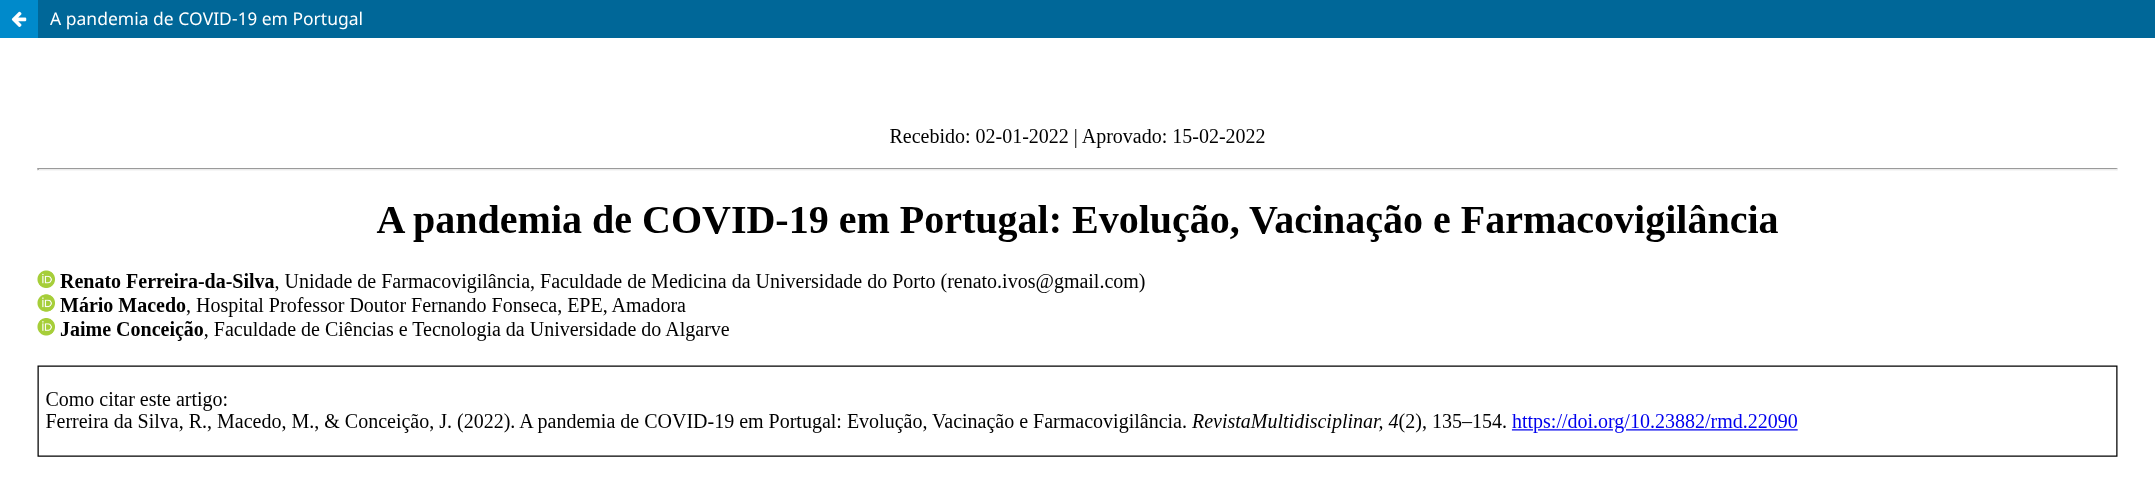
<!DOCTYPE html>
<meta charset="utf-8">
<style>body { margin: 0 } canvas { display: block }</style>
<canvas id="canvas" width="2155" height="502"></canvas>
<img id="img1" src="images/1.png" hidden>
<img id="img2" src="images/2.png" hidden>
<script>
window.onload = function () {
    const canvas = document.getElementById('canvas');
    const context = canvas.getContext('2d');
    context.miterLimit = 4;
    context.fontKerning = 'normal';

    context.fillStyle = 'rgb(255, 255, 255)';
    context.fillRect(0, 0, 2155, 502);
    context.fillStyle = 'rgb(0, 103, 152)';
    context.fillRect(38, 0, 2117, 38);
    context.fillStyle = 'rgb(0, 138, 203)';
    context.fillRect(0, 0, 38, 38);
    context.drawImage(document.getElementById('img1'), 11, 11, 16, 16);
    context.drawImage(document.getElementById('img2'), 37, 129, 2081, 328);
    context.font = '17.5px Noto Sans';
    context.fillStyle = 'rgb(255, 255, 255)';
    context.fillText('A pandemia de COVID-19 em Portugal', 50, 25);
};
</script>
